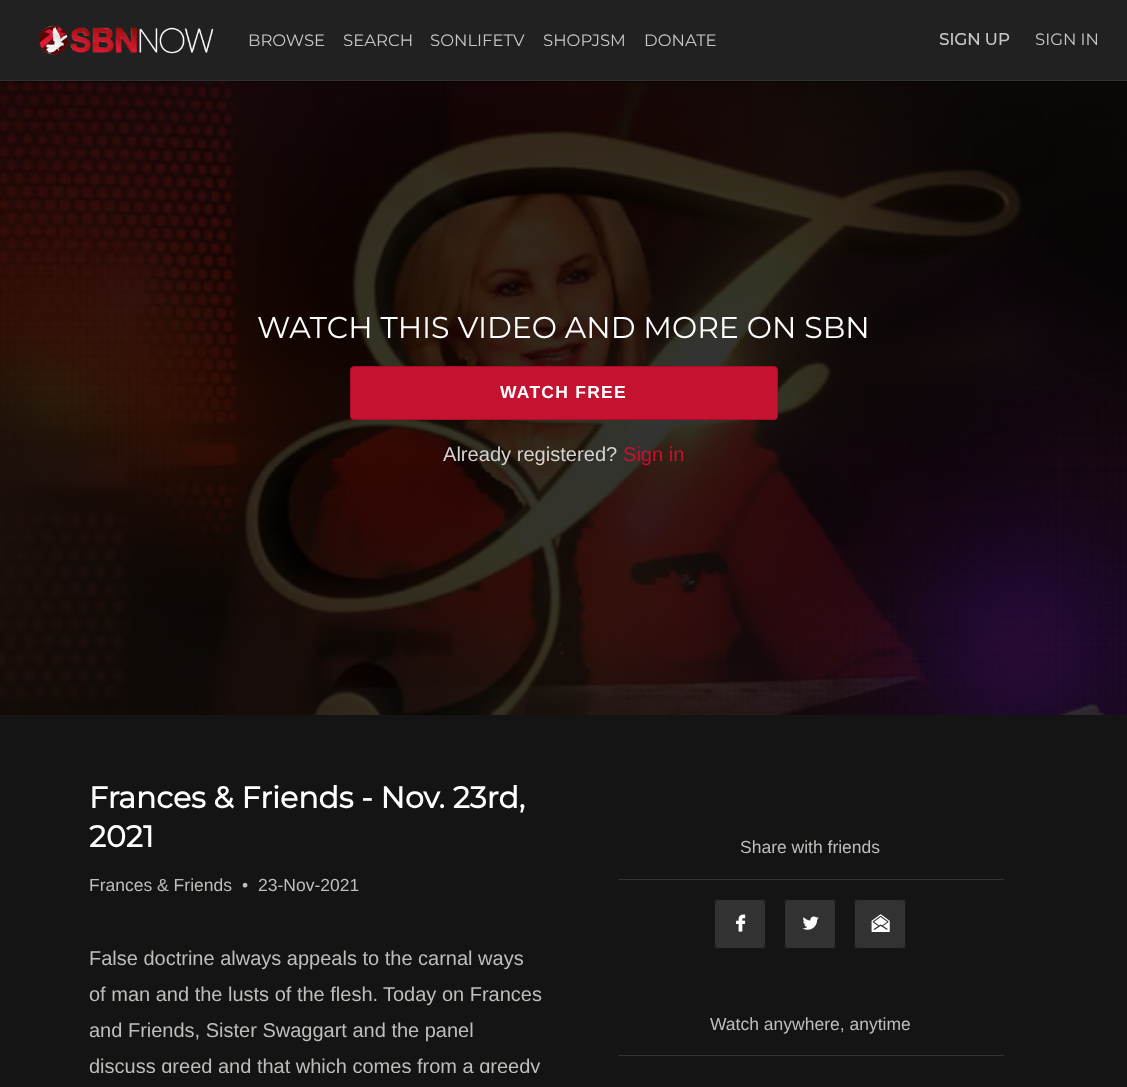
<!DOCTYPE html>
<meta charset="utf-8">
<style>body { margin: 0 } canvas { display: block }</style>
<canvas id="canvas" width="1127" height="1087"></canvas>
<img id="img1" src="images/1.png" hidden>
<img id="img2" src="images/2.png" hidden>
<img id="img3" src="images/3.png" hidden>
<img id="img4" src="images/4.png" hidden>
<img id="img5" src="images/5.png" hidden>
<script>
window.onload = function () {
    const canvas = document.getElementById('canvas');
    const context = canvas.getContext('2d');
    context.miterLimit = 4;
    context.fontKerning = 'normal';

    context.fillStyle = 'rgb(20, 20, 20)';
    context.fillRect(0, 0, 1127, 1087);
    context.fillStyle = 'rgb(33, 33, 33)';
    context.fillRect(0, 0, 1127, 80);
    context.fillStyle = 'rgb(50, 50, 50)';
    context.fillRect(0, 80, 1127, 1);
    context.drawImage(document.getElementById('img1'), 39, 25, 175, 30);
    context.fillStyle = 'rgb(0, 0, 0)';
    context.fillRect(0, 81, 1127, 1);
    context.drawImage(document.getElementById('img2'), 0, 81, 1127, 634);
    context.fillStyle = 'rgb(196, 18, 48)';
    context.beginPath();
    context.roundRect(350.5, 366.5, 427, 53, 3.5);
    context.fill();
    context.strokeStyle = 'rgb(167, 15, 41)';
    context.stroke();
    context.fillStyle = 'rgb(50, 50, 50)';
    context.fillRect(618, 879, 386, 1);
    context.beginPath();
    context.roundRect(714, 899, 52, 50, 4);
    context.fill();
    context.drawImage(document.getElementById('img3'), 736, 914, 10, 18);
    context.beginPath();
    context.roundRect(714.5, 899.5, 51, 49, 3.5);
    context.strokeStyle = 'rgb(20, 20, 20)';
    context.stroke();
    context.beginPath();
    context.roundRect(784, 899, 52, 50, 4);
    context.fill();
    context.drawImage(document.getElementById('img4'), 802, 916, 17, 14);
    context.beginPath();
    context.roundRect(784.5, 899.5, 51, 49, 3.5);
    context.stroke();
    context.beginPath();
    context.roundRect(854, 899, 52, 50, 4);
    context.fill();
    context.drawImage(document.getElementById('img5'), 871, 914, 19, 18);
    context.beginPath();
    context.roundRect(854.5, 899.5, 51, 49, 3.5);
    context.stroke();
    context.fillRect(618, 1055, 386, 1);
    context.font = '16.5px Montserrat';
    context.fillStyle = 'rgb(199, 199, 199)';
    context.fillText('BROWSE', 248, 46);
    context.fillText('SEARCH', 343, 46);
    context.fillText('SONLIFETV', 430, 46);
    context.fillText('SHOPJSM', 543, 46);
    context.fillText('DONATE', 644, 46);
    context.font = 'bold 16.5px Montserrat';
    context.fillText('SIGN UP', 939, 45);
    context.font = '16.5px Montserrat';
    context.fillText('SIGN IN', 1035, 45);
    context.font = '30px Montserrat';
    context.fillStyle = 'rgb(255, 255, 255)';
    context.fillText('WATCH THIS VIDEO AND MORE ON SBN', 257, 338);
    context.letterSpacing = '1.25px';
    context.font = 'bold 17.5px Liberation Sans';
    context.fillText('WATCH FREE', 500, 398);
    context.letterSpacing = '0px';
    context.font = '20.1px Liberation Sans';
    context.fillStyle = 'rgb(212, 211, 209)';
    context.fillText('Already registered?', 443, 461);
    context.fillStyle = 'rgb(196, 18, 48)';
    context.fillText('Sign in', 623, 461);
    context.font = 'bold 30px Montserrat';
    context.fillStyle = 'rgb(255, 255, 255)';
    context.fillText('Frances & Friends - Nov. 23rd,', 89, 808);
    context.fillText('2021', 89, 847);
    context.font = '17.5px Liberation Sans';
    context.fillStyle = 'rgb(190, 190, 187)';
    context.fillText('Frances & Friends', 89, 891);
    context.fillText('•', 242, 891);
    context.fillText('23-Nov-2021', 258, 891);
    context.font = '20px Liberation Sans';
    context.fillText('False doctrine always appeals to the carnal ways', 89, 965);
    context.fillText('of man and the lusts of the flesh.', 89, 1001);
    context.fillText('Today on Frances', 383, 1001);
    context.fillText('and Friends, Sister Swaggart and the panel', 89, 1037);
    context.save();
    context.beginPath();
    context.rect(89, 941, 456, 132);
    context.clip();
    context.fillText('discuss greed and that which comes from a greedy', 89, 1073);
    context.restore();
    context.font = '17.5px Liberation Sans';
    context.fillText('Share with friends', 740, 853);
    context.fillText('Watch anywhere, anytime', 710, 1030);
};
</script>
